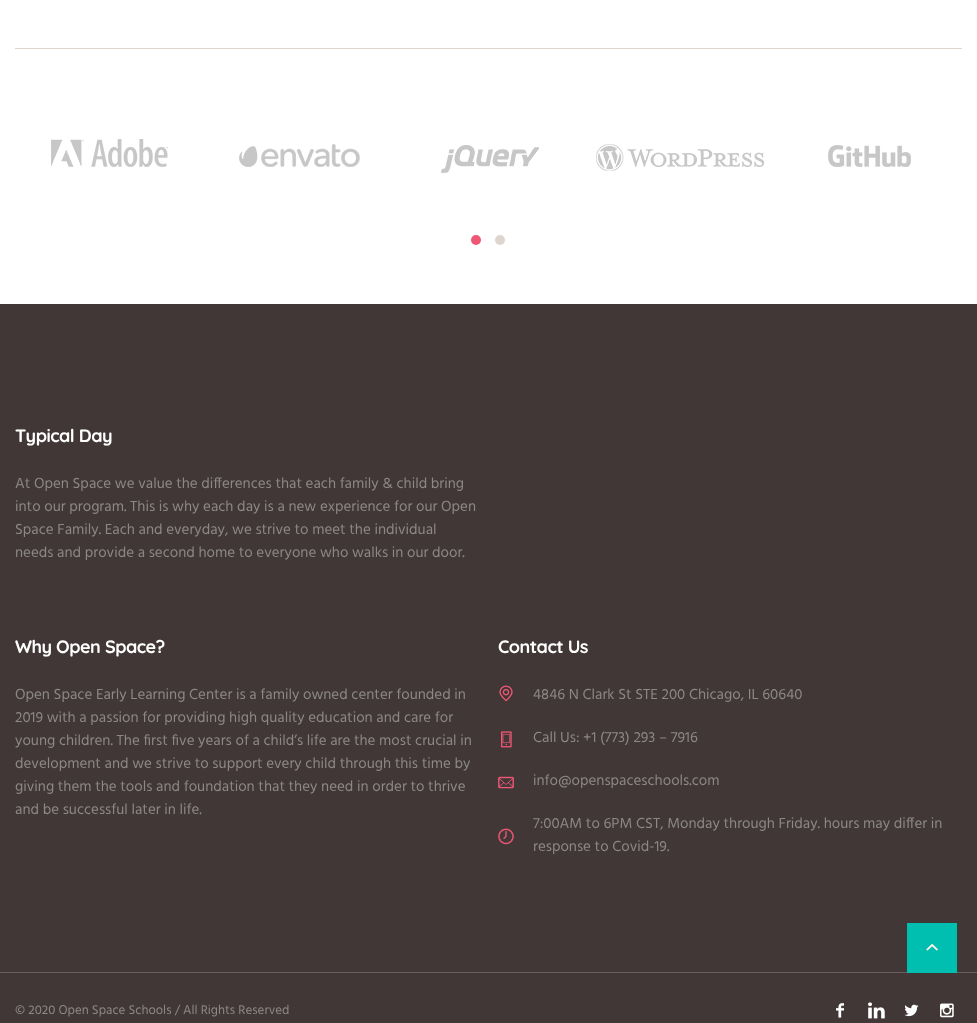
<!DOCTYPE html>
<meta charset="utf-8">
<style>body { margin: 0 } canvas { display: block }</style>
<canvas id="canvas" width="977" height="1023"></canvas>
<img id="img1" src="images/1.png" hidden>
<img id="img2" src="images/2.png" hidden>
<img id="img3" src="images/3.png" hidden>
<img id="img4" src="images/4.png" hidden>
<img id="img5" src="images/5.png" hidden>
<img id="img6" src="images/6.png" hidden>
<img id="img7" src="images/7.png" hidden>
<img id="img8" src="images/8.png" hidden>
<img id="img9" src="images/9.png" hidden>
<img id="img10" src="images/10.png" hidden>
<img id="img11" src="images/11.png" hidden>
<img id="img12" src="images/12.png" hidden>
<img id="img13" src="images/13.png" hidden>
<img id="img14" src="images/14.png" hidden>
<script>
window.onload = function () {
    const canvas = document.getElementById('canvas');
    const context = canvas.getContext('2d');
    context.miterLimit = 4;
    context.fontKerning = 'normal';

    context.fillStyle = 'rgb(255, 255, 255)';
    context.fillRect(0, 0, 977, 1023);
    context.fillStyle = 'rgb(222, 213, 206)';
    context.fillRect(15, 48, 947, 1);
    context.drawImage(document.getElementById('img1'), 51, 139, 117, 28);
    context.drawImage(document.getElementById('img2'), 239, 144, 121, 23);
    context.drawImage(document.getElementById('img3'), 441, 145, 98, 28);
    context.drawImage(document.getElementById('img4'), 596, 144, 168, 27);
    context.drawImage(document.getElementById('img5'), 828, 145, 83, 22);
    context.fillStyle = 'rgb(239, 88, 116)';
    context.beginPath();
    context.arc(476, 240, 5, 0, 2 * Math.PI);
    context.fill();
    context.fillStyle = 'rgb(222, 213, 206)';
    context.beginPath();
    context.arc(500, 240, 5, 0, 2 * Math.PI);
    context.fill();
    context.fillStyle = 'rgb(65, 55, 55)';
    context.fillRect(0, 304, 977, 668);
    context.drawImage(document.getElementById('img6'), 499, 685, 14, 17);
    context.drawImage(document.getElementById('img7'), 501, 731, 11, 17);
    context.drawImage(document.getElementById('img8'), 498, 776, 16, 13);
    context.drawImage(document.getElementById('img9'), 498, 828, 16, 17);
    context.fillStyle = 'rgb(103, 95, 95)';
    context.fillRect(0, 972, 977, 1);
    context.fillStyle = 'rgb(0, 190, 176)';
    context.fillRect(907, 923, 50, 50);
    context.drawImage(document.getElementById('img10'), 926, 944, 12, 7);
    context.fillStyle = 'rgb(65, 55, 55)';
    context.fillRect(0, 973, 977, 50);
    context.drawImage(document.getElementById('img11'), 836, 1003, 8, 15);
    context.drawImage(document.getElementById('img12'), 868, 1002, 17, 17);
    context.drawImage(document.getElementById('img13'), 904, 1004, 15, 13);
    context.drawImage(document.getElementById('img14'), 940, 1003, 14, 15);
    context.letterSpacing = '-0.5px';
    context.font = 'bold 18px Quicksand';
    context.fillStyle = 'rgb(255, 255, 255)';
    context.fillText('Typical Day', 15, 442);
    context.letterSpacing = '0px';
    context.font = '15px Hind';
    context.fillStyle = 'rgb(141, 135, 135)';
    context.fillText('At Open Space we value the differences that each family & child bring', 15, 488);
    context.fillText('into our program. This is why each day is a new experience for our Open', 15, 511);
    context.fillText('Space Family. Each and everyday, we strive to meet the individual', 15, 534);
    context.fillText('needs and provide a second home to everyone who walks in our door.', 15, 557);
    context.letterSpacing = '-0.5px';
    context.font = 'bold 18px Quicksand';
    context.fillStyle = 'rgb(255, 255, 255)';
    context.fillText('Why Open Space?', 15, 653);
    context.letterSpacing = '0px';
    context.font = '15px Hind';
    context.fillStyle = 'rgb(141, 135, 135)';
    context.fillText('Open Space Early Learning Center is a family owned center founded in', 15, 699);
    context.fillText('2019 with a passion for providing high quality education and care for', 15, 722);
    context.fillText('young children. The first five years of a child’s life are the most crucial in', 15, 745);
    context.fillText('development and we strive to support every child through this time by', 15, 768);
    context.fillText('giving them the tools and foundation that they need in order to thrive', 15, 791);
    context.fillText('and be successful later in life.', 15, 814);
    context.letterSpacing = '-0.5px';
    context.font = 'bold 18px Quicksand';
    context.fillStyle = 'rgb(255, 255, 255)';
    context.fillText('Contact Us', 498, 653);
    context.letterSpacing = '0px';
    context.font = '15px Hind';
    context.fillStyle = 'rgb(141, 135, 135)';
    context.fillText('4846 N Clark St STE 200 Chicago, IL 60640', 533, 699);
    context.fillText('Call Us: +1 (773) 293 – 7916', 533, 742);
    context.fillText('info@openspaceschools.com', 533, 785);
    context.fillText('7:00AM to 6PM CST, Monday through Friday. hours may differ in', 533, 828);
    context.fillText('response to Covid-19.', 533, 851);
    context.font = '13px Hind';
    context.fillText('© 2020 Open Space Schools / All Rights Reserved', 15, 1014);
};
</script>
